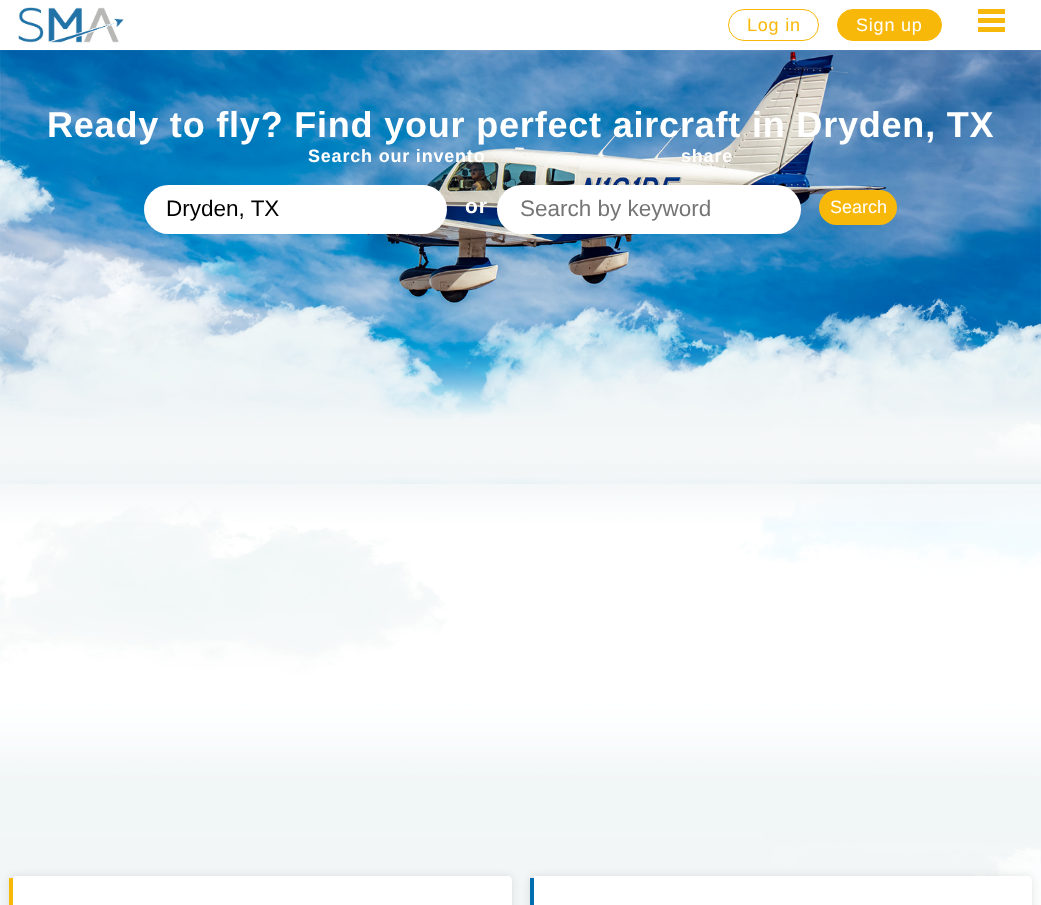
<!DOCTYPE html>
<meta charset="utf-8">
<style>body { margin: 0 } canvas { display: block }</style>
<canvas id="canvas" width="1041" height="905"></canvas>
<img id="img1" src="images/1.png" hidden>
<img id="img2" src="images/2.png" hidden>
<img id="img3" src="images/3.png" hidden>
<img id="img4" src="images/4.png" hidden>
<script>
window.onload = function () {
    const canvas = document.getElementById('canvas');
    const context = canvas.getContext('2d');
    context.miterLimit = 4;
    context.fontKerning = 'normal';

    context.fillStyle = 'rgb(255, 255, 255)';
    context.fillRect(0, 0, 1041, 905);
    context.drawImage(document.getElementById('img1'), 18, 7, 106, 36);
    context.beginPath();
    context.roundRect(728.5, 9.5, 90, 31, 15.5);
    context.strokeStyle = 'rgb(248, 184, 10)';
    context.stroke();
    context.fillStyle = 'rgb(248, 184, 10)';
    context.beginPath();
    context.roundRect(837.5, 9.5, 104, 31, 15.5);
    context.fill();
    context.stroke();
    context.fillRect(978, 9, 27, 5);
    context.fillRect(978, 18, 27, 5);
    context.fillRect(978, 27, 27, 5);
    context.drawImage(document.getElementById('img2'), 0, 484, 1041, 421);
    context.drawImage(document.getElementById('img3'), 0, 50, 1041, 434);
    context.drawImage(document.getElementById('img4'), 0, 159, 1041, 363);
    context.fillStyle = 'rgb(255, 255, 255)';
    context.beginPath();
    context.roundRect(144, 185, 303, 49, 24.5);
    context.fill();
    context.beginPath();
    context.roundRect(497, 185, 304, 49, 24.5);
    context.fill();
    context.fillStyle = 'rgb(248, 184, 10)';
    context.beginPath();
    context.roundRect(819, 190, 78, 35, 17.5);
    context.fill();
    context.fillStyle = 'rgba(0, 0, 0, 0.1)';
    context.filter = 'blur(4.5px)';
    context.beginPath();
    context.roundRect(9, 876, 503, 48, 5);
    context.fill();
    context.filter = 'none';
    context.fillStyle = 'rgb(255, 255, 255)';
    context.beginPath();
    context.moveTo(14, 876);
    context.lineTo(508, 876);
    context.bezierCurveTo(510, 876, 512, 878, 512, 880);
    context.lineTo(512, 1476);
    context.bezierCurveTo(512, 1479, 510, 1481, 508, 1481);
    context.lineTo(14, 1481);
    context.lineTo(13, 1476);
    context.lineTo(13, 880);
    context.closePath();
    context.fill();
    context.fillStyle = 'rgb(248, 184, 10)';
    context.fillRect(9, 878, 4, 27);
    context.fillStyle = 'rgba(0, 0, 0, 0.1)';
    context.filter = 'blur(4.5px)';
    context.beginPath();
    context.roundRect(530, 876, 502, 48, 5);
    context.fill();
    context.filter = 'none';
    context.fillStyle = 'rgb(255, 255, 255)';
    context.beginPath();
    context.moveTo(534, 876);
    context.lineTo(1028, 876);
    context.bezierCurveTo(1030, 876, 1032, 878, 1032, 880);
    context.lineTo(1032, 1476);
    context.bezierCurveTo(1032, 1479, 1030, 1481, 1028, 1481);
    context.lineTo(534, 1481);
    context.lineTo(534, 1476);
    context.lineTo(534, 880);
    context.closePath();
    context.fill();
    context.fillStyle = 'rgb(0, 110, 176)';
    context.fillRect(530, 878, 4, 27);
    context.letterSpacing = '0.8px';
    context.font = '18px Liberation Sans';
    context.fillStyle = 'rgb(248, 184, 10)';
    context.fillText('Log in', 747, 31);
    context.fillStyle = 'rgb(255, 255, 255)';
    context.fillText('Sign up', 856, 31);
    context.font = 'bold 36px Liberation Sans';
    context.fillText('Ready to fly? Find your perfect aircraft in Dryden, TX', 47, 137);
    context.font = 'bold 18px Liberation Sans';
    context.fillText('Search our invento', 308, 162);
    context.fillText('share', 681, 162);
    context.letterSpacing = '0px';
    context.font = '22.5px Liberation Sans';
    context.fillStyle = 'rgb(0, 0, 0)';
    context.fillText('Dryden, TX', 166, 216);
    context.letterSpacing = '0.8px';
    context.font = 'bold 21px Liberation Sans';
    context.fillStyle = 'rgb(255, 255, 255)';
    context.fillText('or', 465, 213);
    context.letterSpacing = '0px';
    context.font = '22.5px Liberation Sans';
    context.fillStyle = 'rgb(117, 117, 117)';
    context.fillText('Search by keyword', 520, 216);
    context.font = '18px Liberation Sans';
    context.fillStyle = 'rgb(255, 255, 255)';
    context.fillText('Search', 830, 213);
};
</script>
